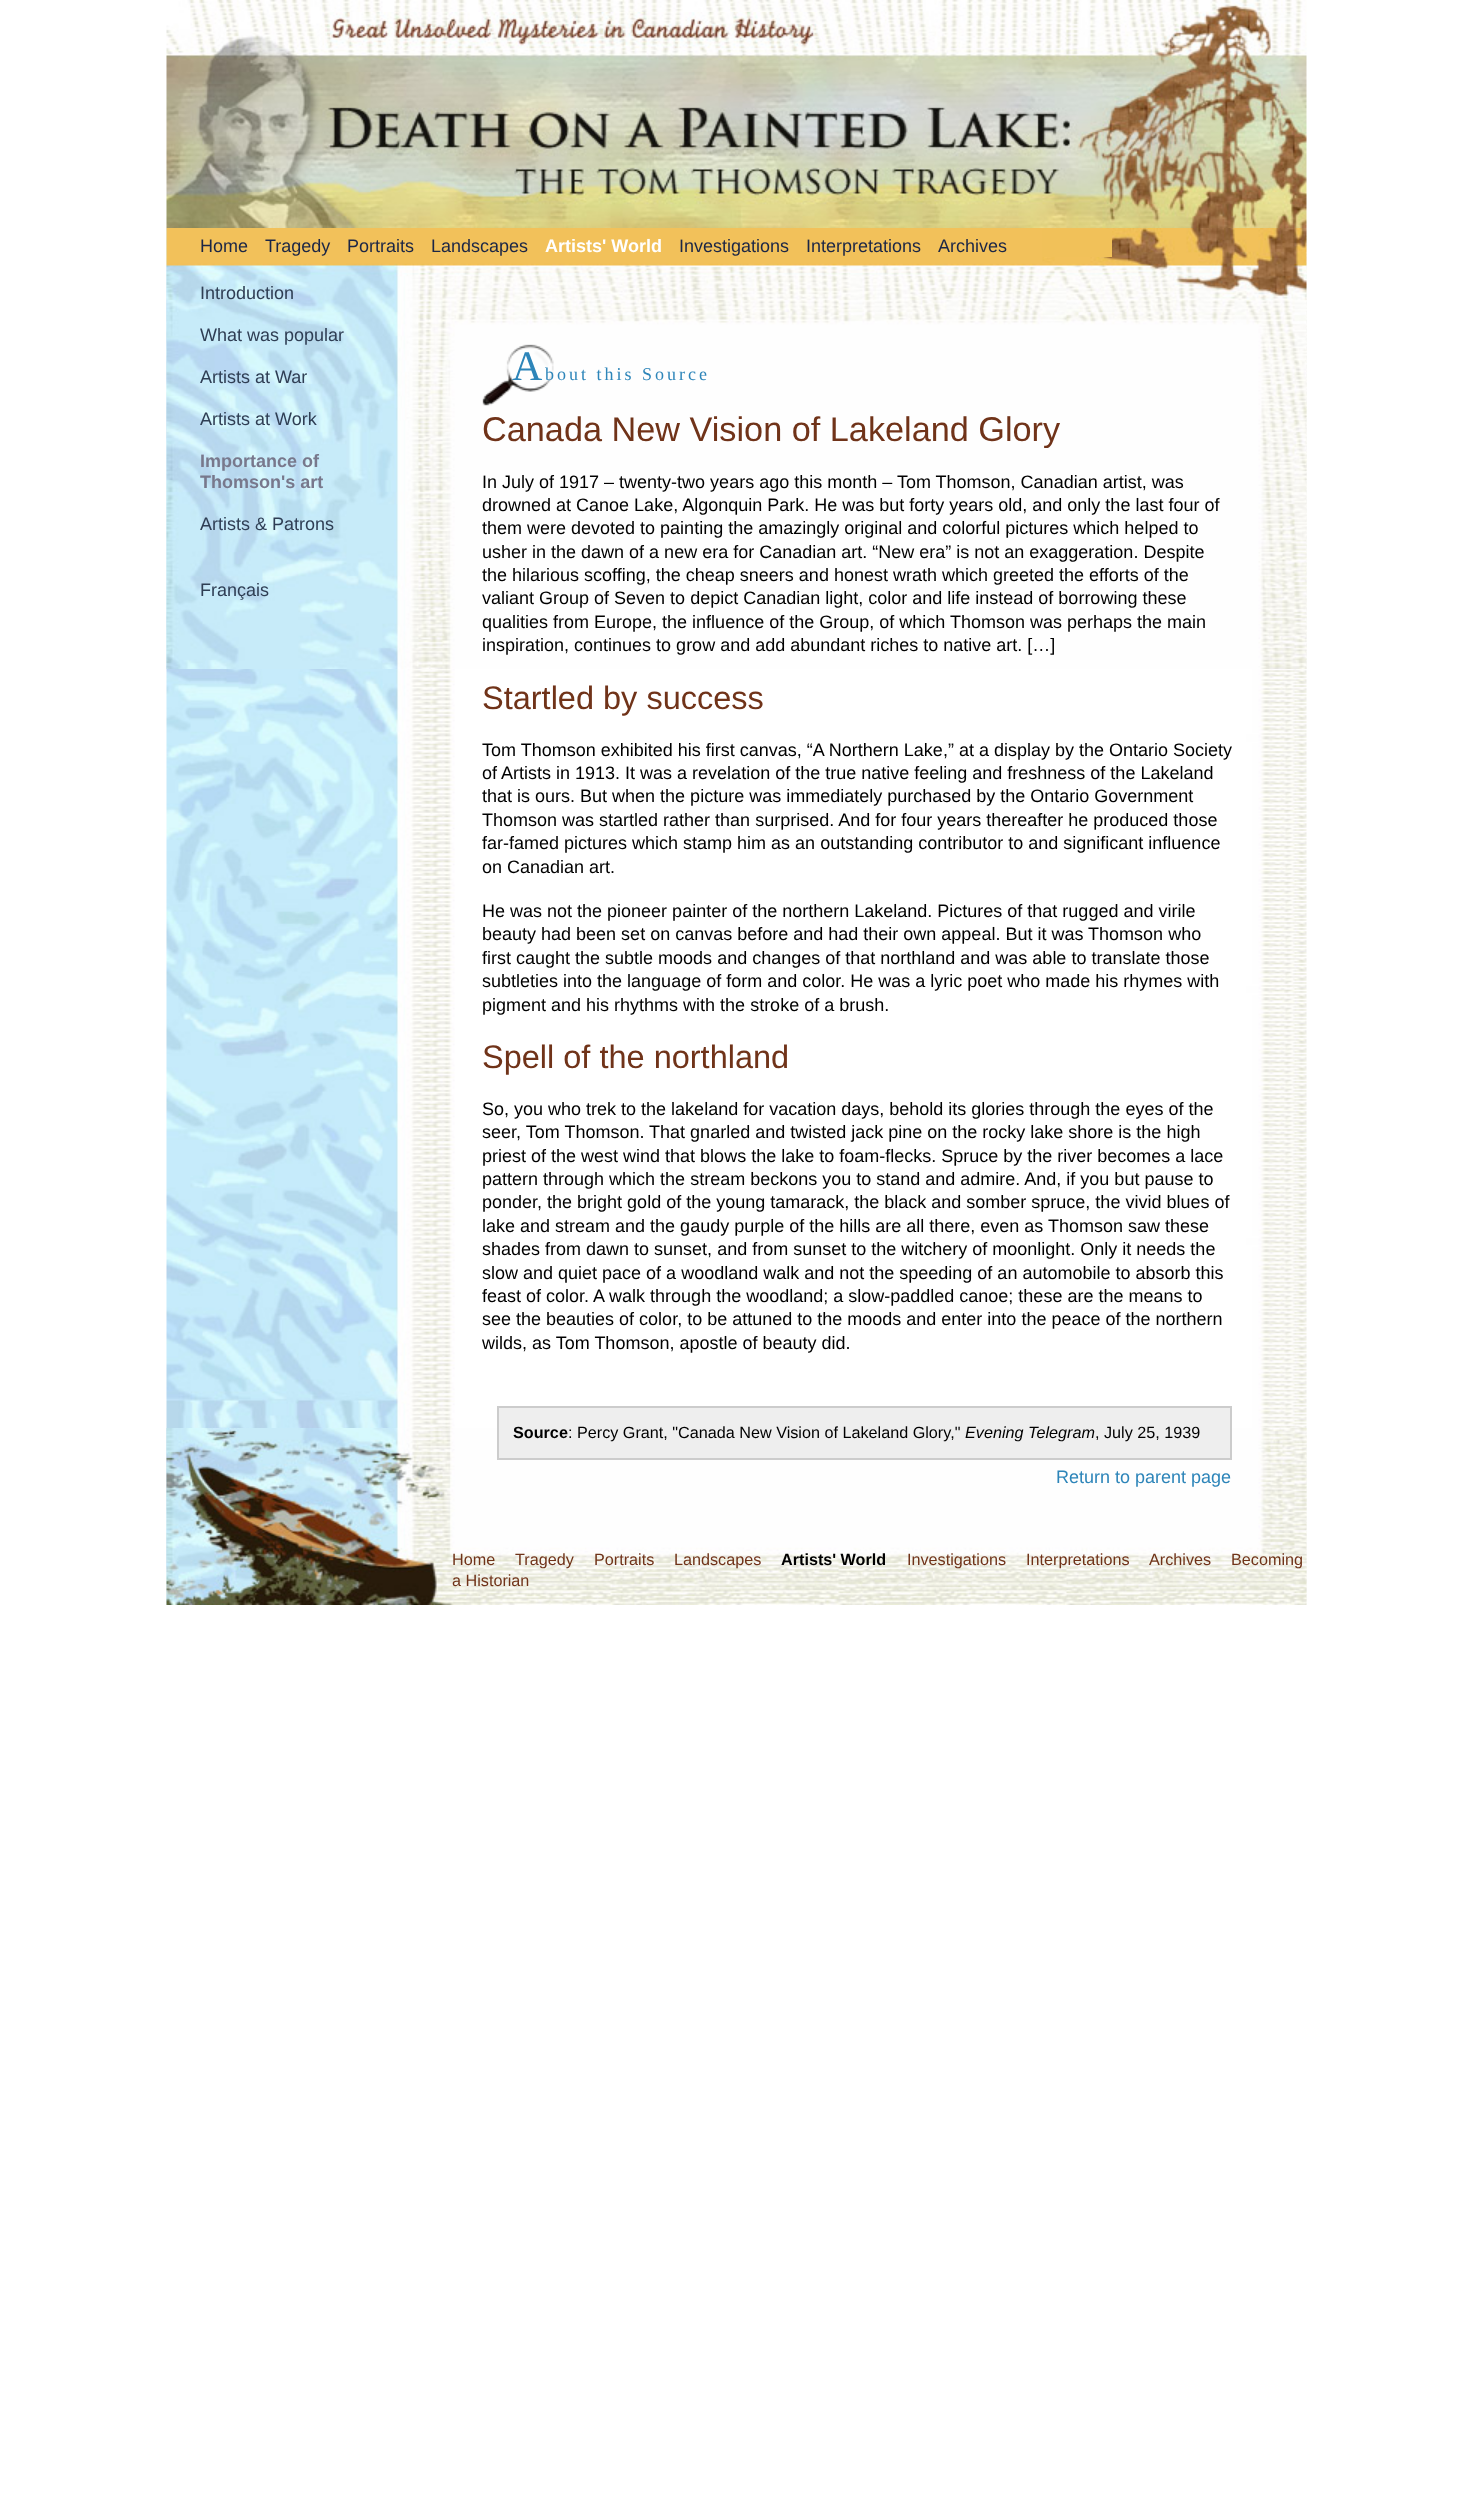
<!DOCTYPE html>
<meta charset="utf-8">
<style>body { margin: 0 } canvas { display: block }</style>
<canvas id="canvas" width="1473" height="2510"></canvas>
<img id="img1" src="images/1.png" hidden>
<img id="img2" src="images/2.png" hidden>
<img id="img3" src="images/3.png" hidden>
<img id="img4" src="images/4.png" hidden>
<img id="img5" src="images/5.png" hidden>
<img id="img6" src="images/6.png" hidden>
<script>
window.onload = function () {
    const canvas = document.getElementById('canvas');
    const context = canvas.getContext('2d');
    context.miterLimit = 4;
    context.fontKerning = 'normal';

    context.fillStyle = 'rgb(255, 255, 255)';
    context.fillRect(0, 0, 1473, 2510);
    context.drawImage(document.getElementById('img1'), 166, 0, 1141, 228);
    context.drawImage(document.getElementById('img2'), 325, 12, 497, 38);
    context.drawImage(document.getElementById('img3'), 166, 228, 1141, 1377);
    context.drawImage(document.getElementById('img4'), 166, 228, 1141, 441);
    context.drawImage(document.getElementById('img5'), 166, 1428, 1141, 177);
    context.fillStyle = 'rgb(241, 193, 89)';
    context.fillRect(1042, 229, 70, 28);
    context.drawImage(document.getElementById('img6'), 482, 344, 72, 62);
    context.fillStyle = 'rgb(238, 238, 238)';
    context.beginPath();
    context.rect(498, 1407, 733, 52);
    context.fill();
    context.strokeStyle = 'rgb(204, 204, 204)';
    context.lineWidth = 2;
    context.stroke();
    context.font = '18px Liberation Sans';
    context.fillStyle = 'rgb(27, 38, 70)';
    context.fillText('Home', 200, 252);
    context.fillText('Tragedy', 265, 252);
    context.fillText('Portraits', 347, 252);
    context.fillText('Landscapes', 431, 252);
    context.font = 'bold 18px Liberation Sans';
    context.fillStyle = 'rgb(255, 255, 255)';
    context.fillText('Artists\' World', 545, 252);
    context.font = '18px Liberation Sans';
    context.fillStyle = 'rgb(27, 38, 70)';
    context.fillText('Investigations', 679, 252);
    context.fillText('Interpretations', 806, 252);
    context.fillText('Archives', 938, 252);
    context.fillStyle = 'rgb(47, 62, 84)';
    context.fillText('Introduction', 200, 299);
    context.fillText('What was popular', 200, 341);
    context.fillText('Artists at War', 200, 383);
    context.fillText('Artists at Work', 200, 425);
    context.font = 'bold 18px Liberation Sans';
    context.fillStyle = 'rgb(120, 120, 140)';
    context.fillText('Importance of', 200, 467);
    context.fillText('Thomson\'s art', 200, 488);
    context.font = '18px Liberation Sans';
    context.fillStyle = 'rgb(47, 62, 84)';
    context.fillText('Artists & Patrons', 200, 530);
    context.fillText('Français', 200, 596);
    context.letterSpacing = '3px';
    context.font = '42px Liberation Serif';
    context.fillStyle = 'rgb(45, 133, 185)';
    context.fillText('A', 512, 380);
    context.font = '18px Liberation Serif';
    context.fillText('bout this Source', 545, 380);
    context.letterSpacing = '0px';
    context.font = '34.25px Liberation Sans';
    context.fillStyle = 'rgb(112, 51, 25)';
    context.fillText('Canada New Vision of Lakeland Glory', 482, 441);
    context.font = '18px Liberation Sans';
    context.fillStyle = 'rgb(0, 0, 0)';
    context.fillText('In July of 1917 – twenty-two years ago this month – Tom Thomson, Canadian artist, was', 482, 488);
    context.fillText('drowned at Canoe Lake, Algonquin Park. He was but forty years old, and only the last four of', 482, 511);
    context.fillText('them were devoted to painting the amazingly original and colorful pictures which helped to', 482, 534);
    context.fillText('usher in the dawn of a new era for Canadian art. “New era” is not an exaggeration. Despite', 482, 558);
    context.fillText('the hilarious scoffing, the cheap sneers and honest wrath which greeted the efforts of the', 482, 581);
    context.fillText('valiant Group of Seven to depict Canadian light, color and life instead of borrowing these', 482, 604);
    context.fillText('qualities from Europe, the influence of the Group, of which Thomson was perhaps the main', 482, 628);
    context.fillText('inspiration, continues to grow and add abundant riches to native art. […]', 482, 651);
    context.font = '32.5px Liberation Sans';
    context.fillStyle = 'rgb(112, 51, 25)';
    context.fillText('Startled by success', 482, 709);
    context.font = '18px Liberation Sans';
    context.fillStyle = 'rgb(0, 0, 0)';
    context.fillText('Tom Thomson exhibited his first canvas, “A Northern Lake,” at a display by the Ontario Society', 482, 756);
    context.fillText('of Artists in 1913. It was a revelation of the true native feeling and freshness of the Lakeland', 482, 779);
    context.fillText('that is ours. But when the picture was immediately purchased by the Ontario Government', 482, 802);
    context.fillText('Thomson was startled rather than surprised. And for four years thereafter he produced those', 482, 826);
    context.fillText('far-famed pictures which stamp him as an outstanding contributor to and significant influence', 482, 849);
    context.fillText('on Canadian art.', 482, 873);
    context.fillText('He was not the pioneer painter of the northern Lakeland. Pictures of that rugged and virile', 482, 917);
    context.fillText('beauty had been set on canvas before and had their own appeal. But it was Thomson who', 482, 940);
    context.fillText('first caught the subtle moods and changes of that northland and was able to translate those', 482, 964);
    context.fillText('subtleties into the language of form and color. He was a lyric poet who made his rhymes with', 482, 987);
    context.fillText('pigment and his rhythms with the stroke of a brush.', 482, 1011);
    context.font = '32.5px Liberation Sans';
    context.fillStyle = 'rgb(112, 51, 25)';
    context.fillText('Spell of the northland', 482, 1068);
    context.font = '18px Liberation Sans';
    context.fillStyle = 'rgb(0, 0, 0)';
    context.fillText('So, you who trek to the lakeland for vacation days, behold its glories through the eyes of the', 482, 1115);
    context.fillText('seer, Tom Thomson. That gnarled and twisted jack pine on the rocky lake shore is the high', 482, 1138);
    context.fillText('priest of the west wind that blows the lake to foam-flecks. Spruce by the river becomes a lace', 482, 1162);
    context.fillText('pattern through which the stream beckons you to stand and admire. And, if you but pause to', 482, 1185);
    context.fillText('ponder, the bright gold of the young tamarack, the black and somber spruce, the vivid blues of', 482, 1208);
    context.fillText('lake and stream and the gaudy purple of the hills are all there, even as Thomson saw these', 482, 1232);
    context.fillText('shades from dawn to sunset, and from sunset to the witchery of moonlight. Only it needs the', 482, 1255);
    context.fillText('slow and quiet pace of a woodland walk and not the speeding of an automobile to absorb this', 482, 1279);
    context.fillText('feast of color. A walk through the woodland; a slow-paddled canoe; these are the means to', 482, 1302);
    context.fillText('see the beauties of color, to be attuned to the moods and enter into the peace of the northern', 482, 1325);
    context.fillText('wilds, as Tom Thomson, apostle of beauty did.', 482, 1349);
    context.font = 'bold 16.2px Liberation Sans';
    context.fillText('Source', 513, 1438);
    context.font = '16.2px Liberation Sans';
    context.fillText(': Percy Grant, "Canada New Vision of Lakeland Glory,"', 568, 1438);
    context.font = 'italic 16.2px Liberation Sans';
    context.fillText('Evening Telegram', 965, 1438);
    context.font = '16.2px Liberation Sans';
    context.fillText(', July 25, 1939', 1095, 1438);
    context.font = '18px Liberation Sans';
    context.fillStyle = 'rgb(45, 133, 185)';
    context.fillText('Return to parent page', 1056, 1483);
    context.font = '16.2px Liberation Sans';
    context.fillStyle = 'rgb(112, 51, 25)';
    context.fillText('Home', 452, 1565);
    context.fillText('Tragedy', 515, 1565);
    context.fillText('Portraits', 594, 1565);
    context.fillText('Landscapes', 674, 1565);
    context.font = 'bold 16.2px Liberation Sans';
    context.fillStyle = 'rgb(0, 0, 0)';
    context.fillText('Artists\' World', 781, 1565);
    context.font = '16.2px Liberation Sans';
    context.fillStyle = 'rgb(112, 51, 25)';
    context.fillText('Investigations', 907, 1565);
    context.fillText('Interpretations', 1026, 1565);
    context.fillText('Archives', 1149, 1565);
    context.fillText('Becoming', 1231, 1565);
    context.fillText('a Historian', 452, 1586);
};
</script>
